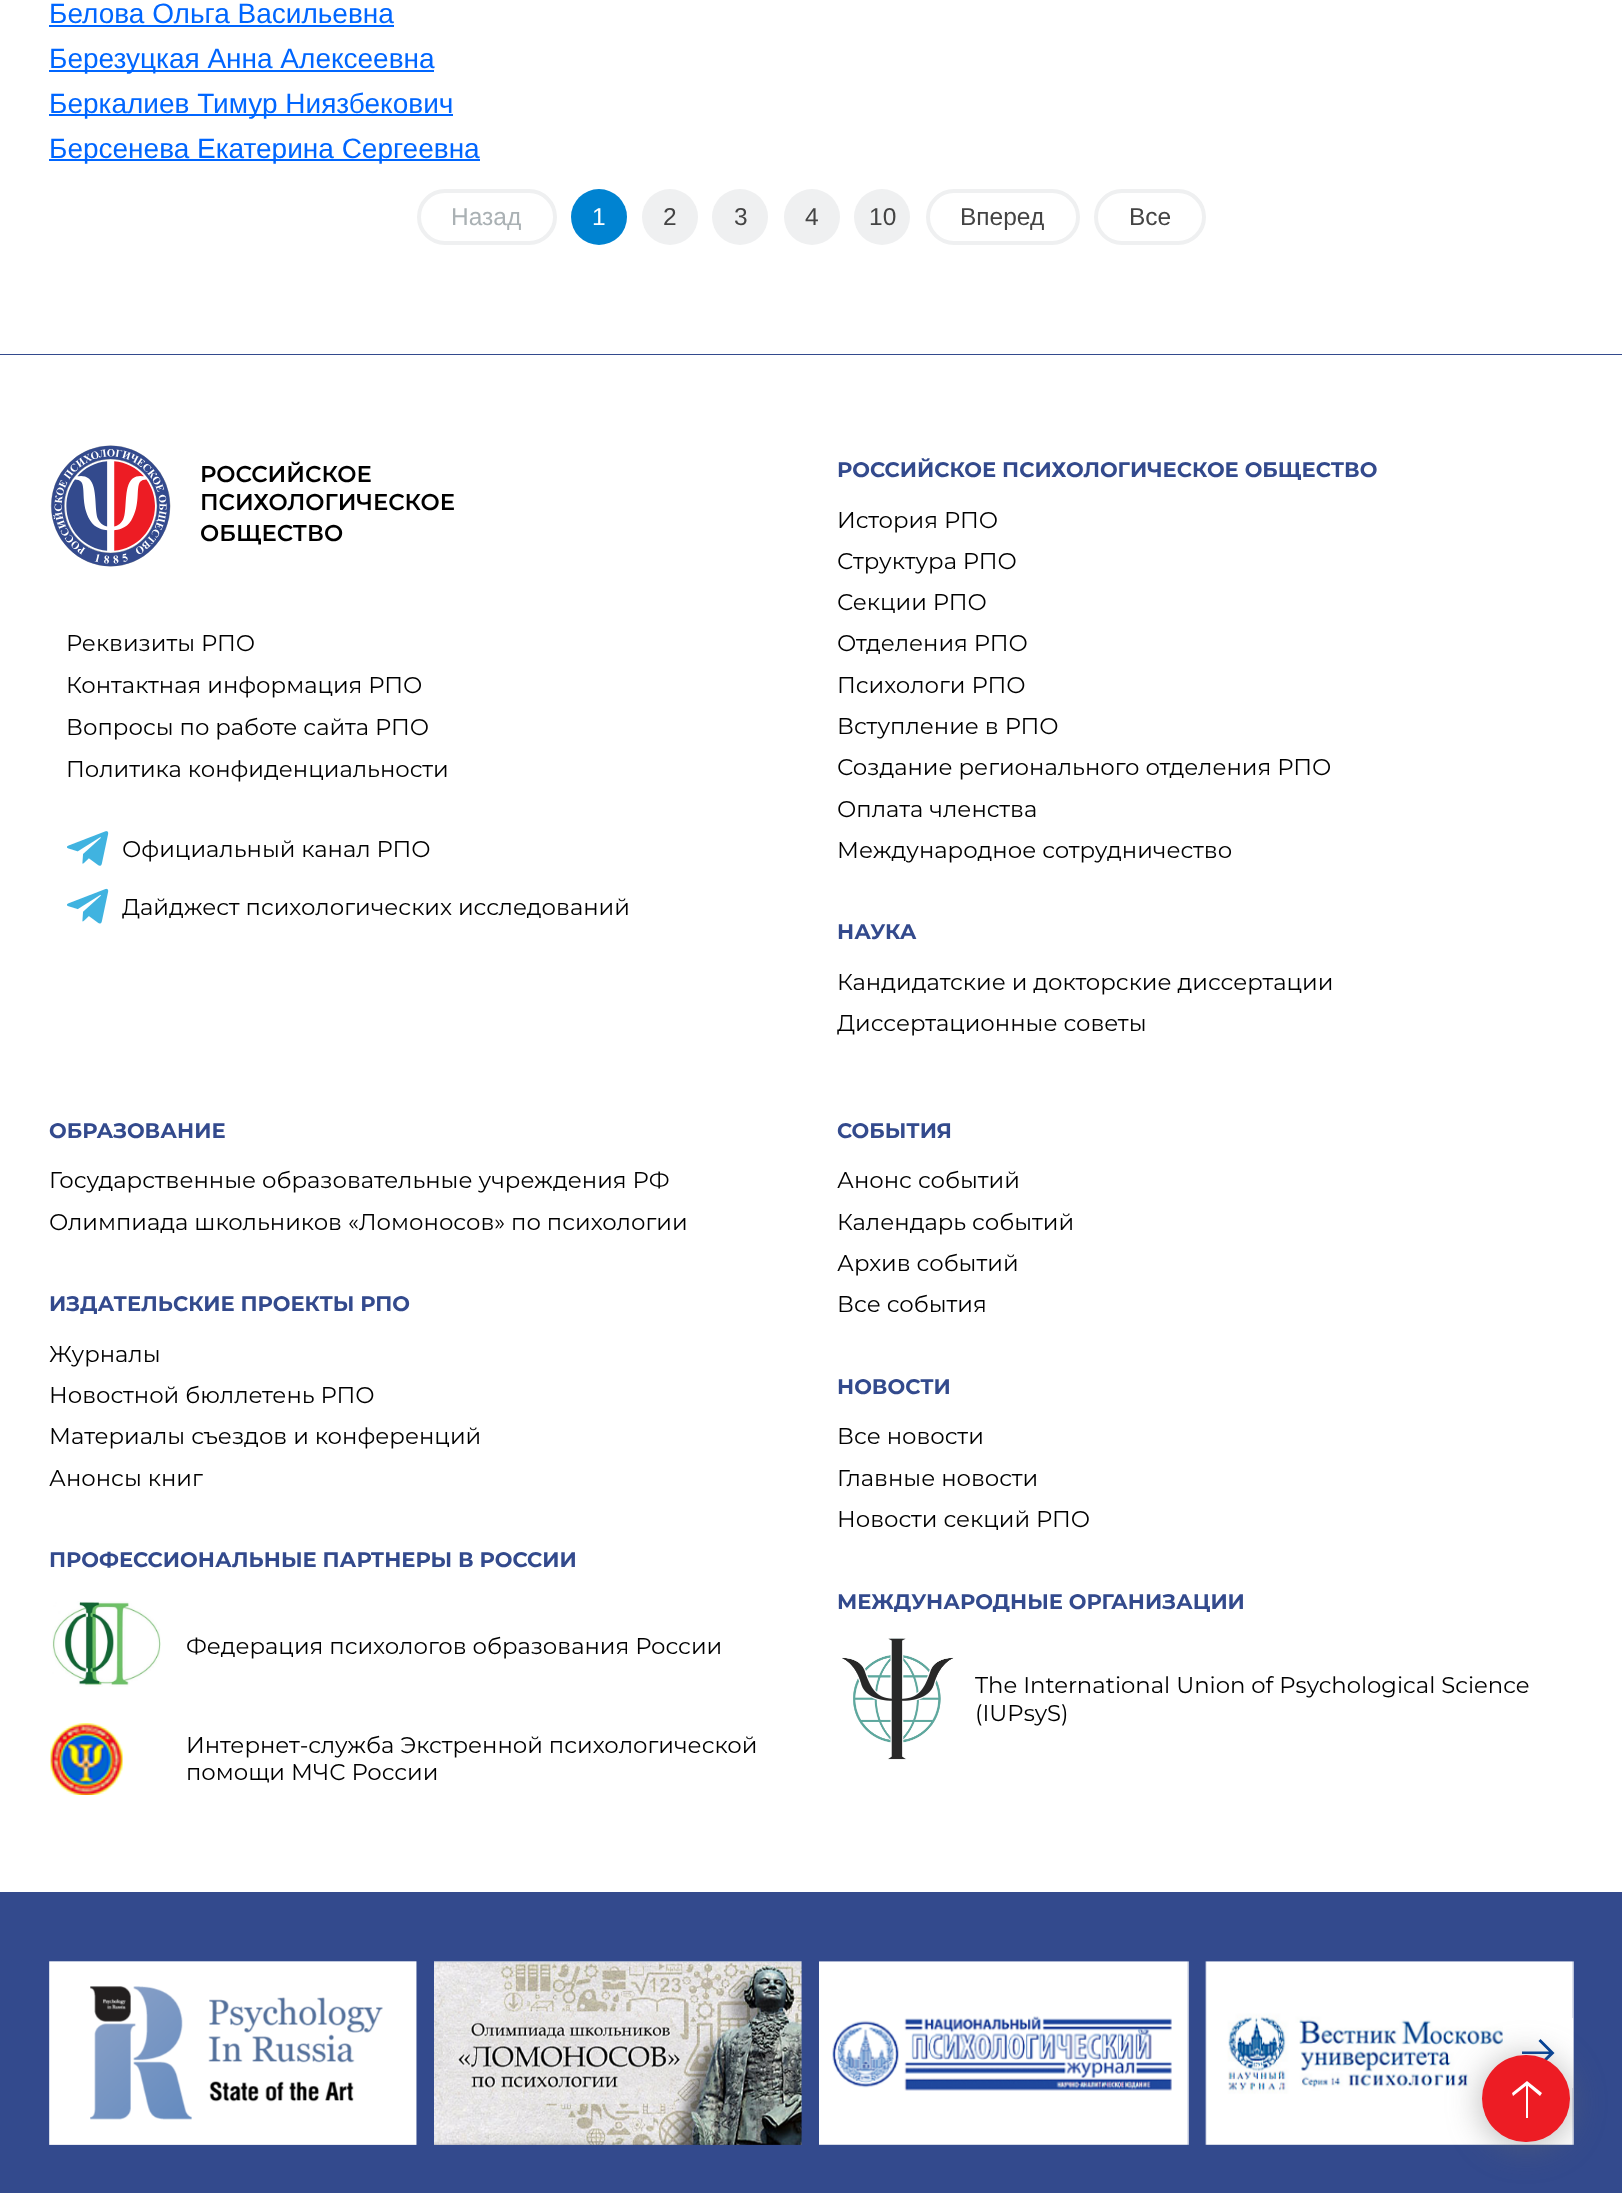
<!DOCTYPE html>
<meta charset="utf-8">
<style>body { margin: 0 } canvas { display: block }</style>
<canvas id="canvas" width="1622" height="2193"></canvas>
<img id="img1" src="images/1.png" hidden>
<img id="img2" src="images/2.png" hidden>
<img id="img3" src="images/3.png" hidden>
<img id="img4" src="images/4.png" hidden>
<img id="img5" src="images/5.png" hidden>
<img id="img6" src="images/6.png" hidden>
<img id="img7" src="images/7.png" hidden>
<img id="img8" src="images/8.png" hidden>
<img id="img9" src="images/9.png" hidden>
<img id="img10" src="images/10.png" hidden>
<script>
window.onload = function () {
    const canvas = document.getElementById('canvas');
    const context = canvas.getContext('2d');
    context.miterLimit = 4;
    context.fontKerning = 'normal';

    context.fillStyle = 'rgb(255, 255, 255)';
    context.fillRect(0, 0, 1622, 2193);
    context.fillStyle = 'rgb(51, 74, 141)';
    context.fillRect(0, 354, 1622, 1);
    context.fillStyle = 'rgb(0, 102, 255)';
    context.fillRect(49, 25, 345, 2);
    context.fillRect(49, 70, 385, 2);
    context.fillRect(49, 114, 404, 2);
    context.fillRect(49, 159, 431, 2);
    context.beginPath();
    context.roundRect(419, 191, 136, 52, 26);
    context.strokeStyle = 'rgb(239, 240, 241)';
    context.lineWidth = 4;
    context.stroke();
    context.fillStyle = 'rgb(0, 131, 209)';
    context.beginPath();
    context.arc(599, 217, 28, 0, 2 * Math.PI);
    context.fill();
    context.fillStyle = 'rgb(239, 240, 241)';
    context.beginPath();
    context.arc(670, 217, 28, 0, 2 * Math.PI);
    context.fill();
    context.beginPath();
    context.arc(740, 217, 28, 0, 2 * Math.PI);
    context.fill();
    context.beginPath();
    context.arc(812, 217, 28, 0, 2 * Math.PI);
    context.fill();
    context.beginPath();
    context.arc(882, 217, 28, 0, 2 * Math.PI);
    context.fill();
    context.beginPath();
    context.roundRect(928, 191, 150, 52, 26);
    context.stroke();
    context.beginPath();
    context.roundRect(1096, 191, 108, 52, 26);
    context.stroke();
    context.drawImage(document.getElementById('img1'), 50, 445, 121, 122);
    context.drawImage(document.getElementById('img2'), 67, 831, 42, 35);
    context.drawImage(document.getElementById('img3'), 67, 888, 42, 36);
    context.drawImage(document.getElementById('img4'), 52, 1601, 109, 86);
    context.drawImage(document.getElementById('img5'), 50, 1723, 73, 72);
    context.drawImage(document.getElementById('img6'), 842, 1638, 112, 122);
    context.fillStyle = 'rgb(51, 74, 141)';
    context.fillRect(0, 1892, 1622, 301);
    context.drawImage(document.getElementById('img7'), 49, 1961, 368, 184);
    context.drawImage(document.getElementById('img8'), 434, 1961, 368, 184);
    context.drawImage(document.getElementById('img9'), 819, 1961, 370, 184);
    context.drawImage(document.getElementById('img10'), 1205, 1961, 369, 184);
    context.fillStyle = 'rgb(255, 255, 255)';
    context.fillRect(1503, 2018, 70, 70);
    context.fillStyle = 'rgb(0, 64, 152)';
    context.beginPath();
    context.moveTo(1522, 2054);
    context.lineTo(1549, 2054);
    context.lineTo(1538.5, 2064.5);
    context.lineTo(1540.5, 2066.5);
    context.lineTo(1554.5, 2053);
    context.lineTo(1540.5, 2039);
    context.lineTo(1538.5, 2041);
    context.lineTo(1549, 2051.5);
    context.lineTo(1522, 2051.5);
    context.closePath();
    context.fill();
    context.fillStyle = 'rgba(105, 105, 105, 0.5)';
    context.filter = 'blur(17.5px)';
    context.beginPath();
    context.roundRect(1482, 2058, 88, 88, 44);
    context.fill();
    context.filter = 'none';
    context.fillStyle = 'rgb(237, 28, 36)';
    context.beginPath();
    context.roundRect(1482, 2055, 88, 87, 43.5);
    context.fill();
    context.fillStyle = 'rgb(255, 255, 255)';
    context.beginPath();
    context.moveTo(1540, 2096);
    context.lineTo(1542, 2093);
    context.lineTo(1527, 2081);
    context.lineTo(1512, 2093);
    context.lineTo(1513, 2096);
    context.lineTo(1527, 2085);
    context.closePath();
    context.fill();
    context.fillRect(1526, 2083, 2, 35);
    context.font = '28px Liberation Sans';
    context.fillStyle = 'rgb(0, 102, 255)';
    context.fillText('Белова Ольга Васильевна', 49, 23);
    context.fillText('Березуцкая Анна Алексеевна', 49, 68);
    context.fillText('Беркалиев Тимур Ниязбекович', 49, 113);
    context.fillText('Берсенева Екатерина Сергеевна', 49, 158);
    context.font = '24.5px Liberation Sans';
    context.fillStyle = 'rgb(170, 177, 180)';
    context.fillText('Назад', 451, 225);
    context.fillStyle = 'rgb(255, 255, 255)';
    context.fillText('1', 592, 225);
    context.fillStyle = 'rgb(68, 68, 68)';
    context.fillText('2', 663, 225);
    context.fillText('3', 734, 225);
    context.fillText('4', 805, 225);
    context.fillText('10', 869, 225);
    context.fillText('Вперед', 960, 225);
    context.fillText('Все', 1129, 225);
    context.font = '600 22.75px Montserrat';
    context.fillStyle = 'rgb(0, 0, 0)';
    context.fillText('РОССИЙСКОЕ', 200, 482);
    context.fillText('ПСИХОЛОГИЧЕСКОЕ', 200, 510);
    context.fillText('ОБЩЕСТВО', 200, 541);
    context.font = '22.75px Montserrat';
    context.fillText('Реквизиты РПО', 66, 651);
    context.fillText('Контактная информация РПО', 66, 693);
    context.fillText('Вопросы по работе сайта РПО', 66, 735);
    context.fillText('Политика конфиденциальности', 66, 777);
    context.fillText('Официальный канал РПО', 122, 857);
    context.fillText('Дайджест психологических исследований', 122, 915);
    context.font = 'bold 21px Montserrat';
    context.fillStyle = 'rgb(51, 74, 141)';
    context.fillText('РОССИЙСКОЕ ПСИХОЛОГИЧЕСКОЕ ОБЩЕСТВО', 837, 477);
    context.font = '22.75px Montserrat';
    context.fillStyle = 'rgb(0, 0, 0)';
    context.fillText('История РПО', 837, 528);
    context.fillText('Структура РПО', 837, 569);
    context.fillText('Секции РПО', 837, 610);
    context.fillText('Отделения РПО', 837, 651);
    context.fillText('Психологи РПО', 837, 693);
    context.fillText('Вступление в РПО', 837, 734);
    context.fillText('Создание регионального отделения РПО', 837, 775);
    context.fillText('Оплата членства', 837, 817);
    context.fillText('Международное сотрудничество', 837, 858);
    context.font = 'bold 21px Montserrat';
    context.fillStyle = 'rgb(51, 74, 141)';
    context.fillText('НАУКА', 837, 939);
    context.font = '22.75px Montserrat';
    context.fillStyle = 'rgb(0, 0, 0)';
    context.fillText('Кандидатские и докторские диссертации', 837, 990);
    context.fillText('Диссертационные советы', 837, 1031);
    context.font = 'bold 21px Montserrat';
    context.fillStyle = 'rgb(51, 74, 141)';
    context.fillText('ОБРАЗОВАНИЕ', 49, 1138);
    context.font = '22.75px Montserrat';
    context.fillStyle = 'rgb(0, 0, 0)';
    context.fillText('Государственные образовательные учреждения РФ', 49, 1188);
    context.fillText('Олимпиада школьников «Ломоносов» по психологии', 49, 1230);
    context.font = 'bold 21px Montserrat';
    context.fillStyle = 'rgb(51, 74, 141)';
    context.fillText('ИЗДАТЕЛЬСКИЕ ПРОЕКТЫ РПО', 49, 1311);
    context.font = '22.75px Montserrat';
    context.fillStyle = 'rgb(0, 0, 0)';
    context.fillText('Журналы', 49, 1362);
    context.fillText('Новостной бюллетень РПО', 49, 1403);
    context.fillText('Материалы съездов и конференций', 49, 1444);
    context.fillText('Анонсы книг', 49, 1486);
    context.font = 'bold 21px Montserrat';
    context.fillStyle = 'rgb(51, 74, 141)';
    context.fillText('ПРОФЕССИОНАЛЬНЫЕ ПАРТНЕРЫ В РОССИИ', 49, 1567);
    context.font = '22.75px Montserrat';
    context.fillStyle = 'rgb(0, 0, 0)';
    context.fillText('Федерация психологов образования России', 186, 1654);
    context.fillText('Интернет-служба Экстренной психологической', 186, 1753);
    context.fillText('помощи МЧС России', 186, 1780);
    context.font = 'bold 21px Montserrat';
    context.fillStyle = 'rgb(51, 74, 141)';
    context.fillText('СОБЫТИЯ', 837, 1138);
    context.font = '22.75px Montserrat';
    context.fillStyle = 'rgb(0, 0, 0)';
    context.fillText('Анонс событий', 837, 1188);
    context.fillText('Календарь событий', 837, 1230);
    context.fillText('Архив событий', 837, 1271);
    context.fillText('Все события', 837, 1312);
    context.font = 'bold 21px Montserrat';
    context.fillStyle = 'rgb(51, 74, 141)';
    context.fillText('НОВОСТИ', 837, 1394);
    context.font = '22.75px Montserrat';
    context.fillStyle = 'rgb(0, 0, 0)';
    context.fillText('Все новости', 837, 1444);
    context.fillText('Главные новости', 837, 1486);
    context.fillText('Новости секций РПО', 837, 1527);
    context.font = 'bold 21px Montserrat';
    context.fillStyle = 'rgb(51, 74, 141)';
    context.fillText('МЕЖДУНАРОДНЫЕ ОРГАНИЗАЦИИ', 837, 1609);
    context.font = '22.75px Montserrat';
    context.fillStyle = 'rgb(0, 0, 0)';
    context.fillText('The International Union of Psychological Science', 975, 1693);
    context.fillText('(IUPsyS)', 975, 1721);
};
</script>
